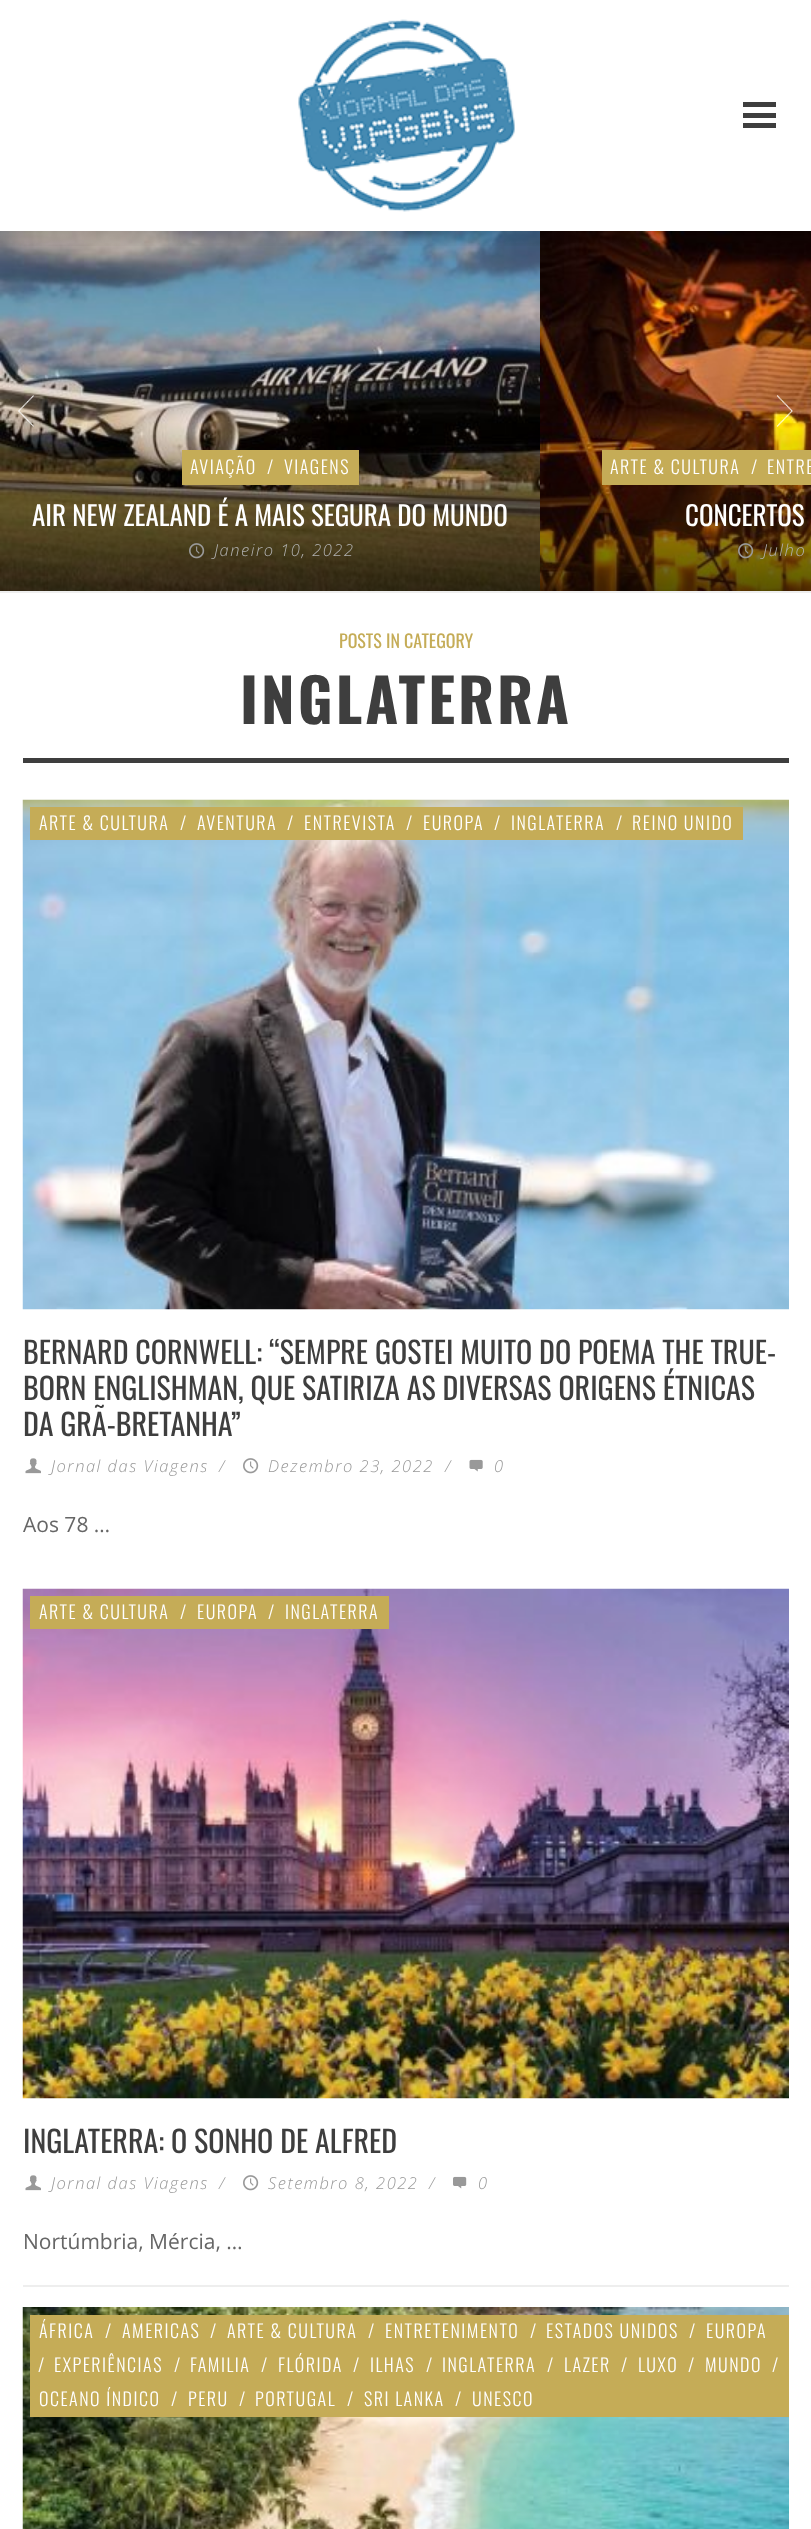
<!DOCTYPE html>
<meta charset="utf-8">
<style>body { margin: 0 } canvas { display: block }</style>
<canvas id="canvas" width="811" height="2529"></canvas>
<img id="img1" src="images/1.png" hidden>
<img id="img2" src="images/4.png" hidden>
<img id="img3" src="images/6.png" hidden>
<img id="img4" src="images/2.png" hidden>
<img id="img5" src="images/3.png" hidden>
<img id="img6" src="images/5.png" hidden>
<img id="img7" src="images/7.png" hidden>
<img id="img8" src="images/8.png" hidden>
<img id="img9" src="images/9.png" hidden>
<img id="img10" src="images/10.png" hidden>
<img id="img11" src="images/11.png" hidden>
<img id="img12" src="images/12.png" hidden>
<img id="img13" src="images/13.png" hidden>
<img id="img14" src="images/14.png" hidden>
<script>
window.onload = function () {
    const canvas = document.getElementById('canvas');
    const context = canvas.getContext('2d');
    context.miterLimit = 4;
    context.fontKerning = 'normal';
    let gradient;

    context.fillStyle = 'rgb(255, 255, 255)';
    context.fillRect(0, 0, 811, 2529);
    context.drawImage(document.getElementById('img1'), 298, 19, 217, 193);
    context.fillStyle = 'rgb(62, 62, 62)';
    context.fillRect(743, 102, 33, 5);
    context.fillRect(743, 113, 33, 5);
    context.fillRect(743, 123, 33, 5);
    context.drawImage(document.getElementById('img2'), 0, 231, 540, 360);
    context.drawImage(document.getElementById('img3'), 540, 231, 271, 360);
    gradient = context.createLinearGradient(406, 231, 406, 261);
    gradient.addColorStop(0, 'rgba(0, 0, 0, 0.15)');
    gradient.addColorStop(0.5, 'rgba(0, 0, 0, 0.02)');
    gradient.addColorStop(0.8, 'rgba(0, 0, 0, 0)');
    context.fillStyle = gradient;
    context.fillRect(0, 231, 668, 15);
    context.drawImage(document.getElementById('img4'), 18, 395, 16, 32);
    context.drawImage(document.getElementById('img5'), 776, 395, 17, 32);
    context.fillStyle = 'rgb(197, 172, 87)';
    context.fillRect(182, 450, 177, 35);
    context.drawImage(document.getElementById('img6'), 189, 543, 16, 16);
    context.fillRect(602, 450, 209, 35);
    context.drawImage(document.getElementById('img7'), 738, 543, 16, 16);
    context.fillStyle = 'rgb(238, 238, 238)';
    context.fillRect(0, 591, 811, 2);
    context.fillStyle = 'rgb(62, 62, 62)';
    context.fillRect(23, 758, 766, 5);
    context.drawImage(document.getElementById('img8'), 22, 799, 767, 511);
    context.fillStyle = 'rgb(197, 172, 87)';
    context.fillRect(30, 807, 713, 33);
    context.drawImage(document.getElementById('img9'), 25, 1458, 16, 16);
    context.drawImage(document.getElementById('img10'), 243, 1458, 16, 16);
    context.drawImage(document.getElementById('img11'), 469, 1459, 14, 13);
    context.drawImage(document.getElementById('img12'), 22, 1588, 767, 511);
    context.fillRect(30, 1596, 359, 33);
    context.drawImage(document.getElementById('img9'), 25, 2175, 16, 16);
    context.drawImage(document.getElementById('img10'), 243, 2175, 16, 16);
    context.drawImage(document.getElementById('img13'), 453, 2176, 14, 13);
    context.fillStyle = 'rgb(238, 238, 238)';
    context.fillRect(23, 2285, 766, 2);
    context.drawImage(document.getElementById('img14'), 22, 2307, 767, 222);
    context.fillStyle = 'rgb(197, 172, 87)';
    context.fillRect(30, 2315, 759, 102);
    context.letterSpacing = '1.5px';
    context.font = '300 18px Oswald';
    context.fillStyle = 'rgb(255, 255, 255)';
    context.fillText('AVIAÇÃO', 190, 474);
    context.letterSpacing = '0px';
    context.fillText('/', 267, 474);
    context.letterSpacing = '1.5px';
    context.fillText('VIAGENS', 284, 474);
    context.letterSpacing = '0px';
    context.font = '27px Oswald';
    context.fillText('AIR NEW ZEALAND É A MAIS SEGURA DO MUNDO', 32, 526);
    context.letterSpacing = '1.5px';
    context.font = 'italic 300 16.5px Open Sans';
    context.fillStyle = 'rgb(176, 176, 176)';
    context.fillText('Janeiro 10, 2022', 214, 556);
    context.font = '300 18px Oswald';
    context.fillStyle = 'rgb(255, 255, 255)';
    context.fillText('ARTE & CULTURA', 610, 474);
    context.letterSpacing = '0px';
    context.fillText('/', 751, 474);
    context.letterSpacing = '1.5px';
    context.fillText('ENTRE', 767, 474);
    context.letterSpacing = '0px';
    context.font = '27px Oswald';
    context.fillText('CONCERTOS', 685, 526);
    context.letterSpacing = '1.5px';
    context.font = 'italic 300 16.5px Open Sans';
    context.fillStyle = 'rgb(176, 176, 176)';
    context.fillText('Julho', 763, 556);
    context.letterSpacing = '0px';
    context.font = '18px Oswald';
    context.fillStyle = 'rgb(197, 172, 87)';
    context.fillText('POSTS IN CATEGORY', 339, 648);
    context.letterSpacing = '3px';
    context.font = 'bold 60px Oswald';
    context.fillStyle = 'rgb(62, 62, 62)';
    context.fillText('INGLATERRA', 240, 724);
    context.letterSpacing = '1.5px';
    context.font = '300 18px Oswald';
    context.fillStyle = 'rgb(255, 255, 255)';
    context.fillText('ARTE & CULTURA', 39, 830);
    context.letterSpacing = '0px';
    context.fillText('/', 180, 830);
    context.letterSpacing = '1.5px';
    context.fillText('AVENTURA', 197, 830);
    context.letterSpacing = '0px';
    context.fillText('/', 287, 830);
    context.letterSpacing = '1.5px';
    context.fillText('ENTREVISTA', 304, 830);
    context.letterSpacing = '0px';
    context.fillText('/', 406, 830);
    context.letterSpacing = '1.5px';
    context.fillText('EUROPA', 423, 830);
    context.letterSpacing = '0px';
    context.fillText('/', 494, 830);
    context.letterSpacing = '1.5px';
    context.fillText('INGLATERRA', 511, 830);
    context.letterSpacing = '0px';
    context.fillText('/', 616, 830);
    context.letterSpacing = '1.5px';
    context.fillText('REINO UNIDO', 632, 830);
    context.letterSpacing = '0px';
    context.font = '30px Oswald';
    context.fillStyle = 'rgb(62, 62, 62)';
    context.fillText('BERNARD CORNWELL: “SEMPRE GOSTEI MUITO DO POEMA THE TRUE-', 23, 1364);
    context.fillText('BORN ENGLISHMAN, QUE SATIRIZA AS DIVERSAS ORIGENS ÉTNICAS', 23, 1400);
    context.fillText('DA GRÃ-BRETANHA”', 23, 1436);
    context.letterSpacing = '1.5px';
    context.font = 'italic 300 16.5px Open Sans';
    context.fillStyle = 'rgb(153, 153, 153)';
    context.fillText('Jornal das Viagens', 51, 1472);
    context.fillText('/', 219, 1472);
    context.fillText('Dezembro 23, 2022', 268, 1472);
    context.fillText('/', 445, 1472);
    context.fillText('0', 494, 1472);
    context.letterSpacing = '0px';
    context.font = '21px Open Sans';
    context.fillStyle = 'rgb(102, 102, 102)';
    context.fillText('Aos 78 …', 23, 1532);
    context.letterSpacing = '1.5px';
    context.font = '300 18px Oswald';
    context.fillStyle = 'rgb(255, 255, 255)';
    context.fillText('ARTE & CULTURA', 39, 1619);
    context.letterSpacing = '0px';
    context.fillText('/', 180, 1619);
    context.letterSpacing = '1.5px';
    context.fillText('EUROPA', 197, 1619);
    context.letterSpacing = '0px';
    context.fillText('/', 268, 1619);
    context.letterSpacing = '1.5px';
    context.fillText('INGLATERRA', 285, 1619);
    context.letterSpacing = '0px';
    context.font = '30px Oswald';
    context.fillStyle = 'rgb(62, 62, 62)';
    context.fillText('INGLATERRA: O SONHO DE ALFRED', 23, 2153);
    context.letterSpacing = '1.5px';
    context.font = 'italic 300 16.5px Open Sans';
    context.fillStyle = 'rgb(153, 153, 153)';
    context.fillText('Jornal das Viagens', 51, 2189);
    context.fillText('/', 219, 2189);
    context.fillText('Setembro 8, 2022', 268, 2189);
    context.fillText('/', 429, 2189);
    context.fillText('0', 478, 2189);
    context.letterSpacing = '0px';
    context.font = '21px Open Sans';
    context.fillStyle = 'rgb(102, 102, 102)';
    context.fillText('Nortúmbria, Mércia, …', 23, 2249);
    context.letterSpacing = '1.5px';
    context.font = '300 18px Oswald';
    context.fillStyle = 'rgb(255, 255, 255)';
    context.fillText('ÁFRICA', 39, 2338);
    context.letterSpacing = '0px';
    context.fillText('/', 105, 2338);
    context.letterSpacing = '1.5px';
    context.fillText('AMERICAS', 122, 2338);
    context.letterSpacing = '0px';
    context.fillText('/', 210, 2338);
    context.letterSpacing = '1.5px';
    context.fillText('ARTE & CULTURA', 227, 2338);
    context.letterSpacing = '0px';
    context.fillText('/', 368, 2338);
    context.letterSpacing = '1.5px';
    context.fillText('ENTRETENIMENTO', 385, 2338);
    context.letterSpacing = '0px';
    context.fillText('/', 530, 2338);
    context.letterSpacing = '1.5px';
    context.fillText('ESTADOS UNIDOS', 546, 2338);
    context.letterSpacing = '0px';
    context.fillText('/', 689, 2338);
    context.letterSpacing = '1.5px';
    context.fillText('EUROPA', 706, 2338);
    context.letterSpacing = '0px';
    context.fillText('/', 38, 2372);
    context.letterSpacing = '1.5px';
    context.fillText('EXPERIÊNCIAS', 54, 2372);
    context.letterSpacing = '0px';
    context.fillText('/', 174, 2372);
    context.letterSpacing = '1.5px';
    context.fillText('FAMILIA', 190, 2372);
    context.letterSpacing = '0px';
    context.fillText('/', 261, 2372);
    context.letterSpacing = '1.5px';
    context.fillText('FLÓRIDA', 278, 2372);
    context.letterSpacing = '0px';
    context.fillText('/', 353, 2372);
    context.letterSpacing = '1.5px';
    context.fillText('ILHAS', 370, 2372);
    context.letterSpacing = '0px';
    context.fillText('/', 426, 2372);
    context.letterSpacing = '1.5px';
    context.fillText('INGLATERRA', 442, 2372);
    context.letterSpacing = '0px';
    context.fillText('/', 547, 2372);
    context.letterSpacing = '1.5px';
    context.fillText('LAZER', 564, 2372);
    context.letterSpacing = '0px';
    context.fillText('/', 621, 2372);
    context.letterSpacing = '1.5px';
    context.fillText('LUXO', 638, 2372);
    context.letterSpacing = '0px';
    context.fillText('/', 688, 2372);
    context.letterSpacing = '1.5px';
    context.fillText('MUNDO', 705, 2372);
    context.letterSpacing = '0px';
    context.fillText('/', 772, 2372);
    context.letterSpacing = '1.5px';
    context.fillText('OCEANO ÍNDICO', 39, 2406);
    context.letterSpacing = '0px';
    context.fillText('/', 171, 2406);
    context.letterSpacing = '1.5px';
    context.fillText('PERU', 188, 2406);
    context.letterSpacing = '0px';
    context.fillText('/', 239, 2406);
    context.letterSpacing = '1.5px';
    context.fillText('PORTUGAL', 255, 2406);
    context.letterSpacing = '0px';
    context.fillText('/', 347, 2406);
    context.letterSpacing = '1.5px';
    context.fillText('SRI LANKA', 364, 2406);
    context.letterSpacing = '0px';
    context.fillText('/', 455, 2406);
    context.letterSpacing = '1.5px';
    context.fillText('UNESCO', 472, 2406);
};
</script>
